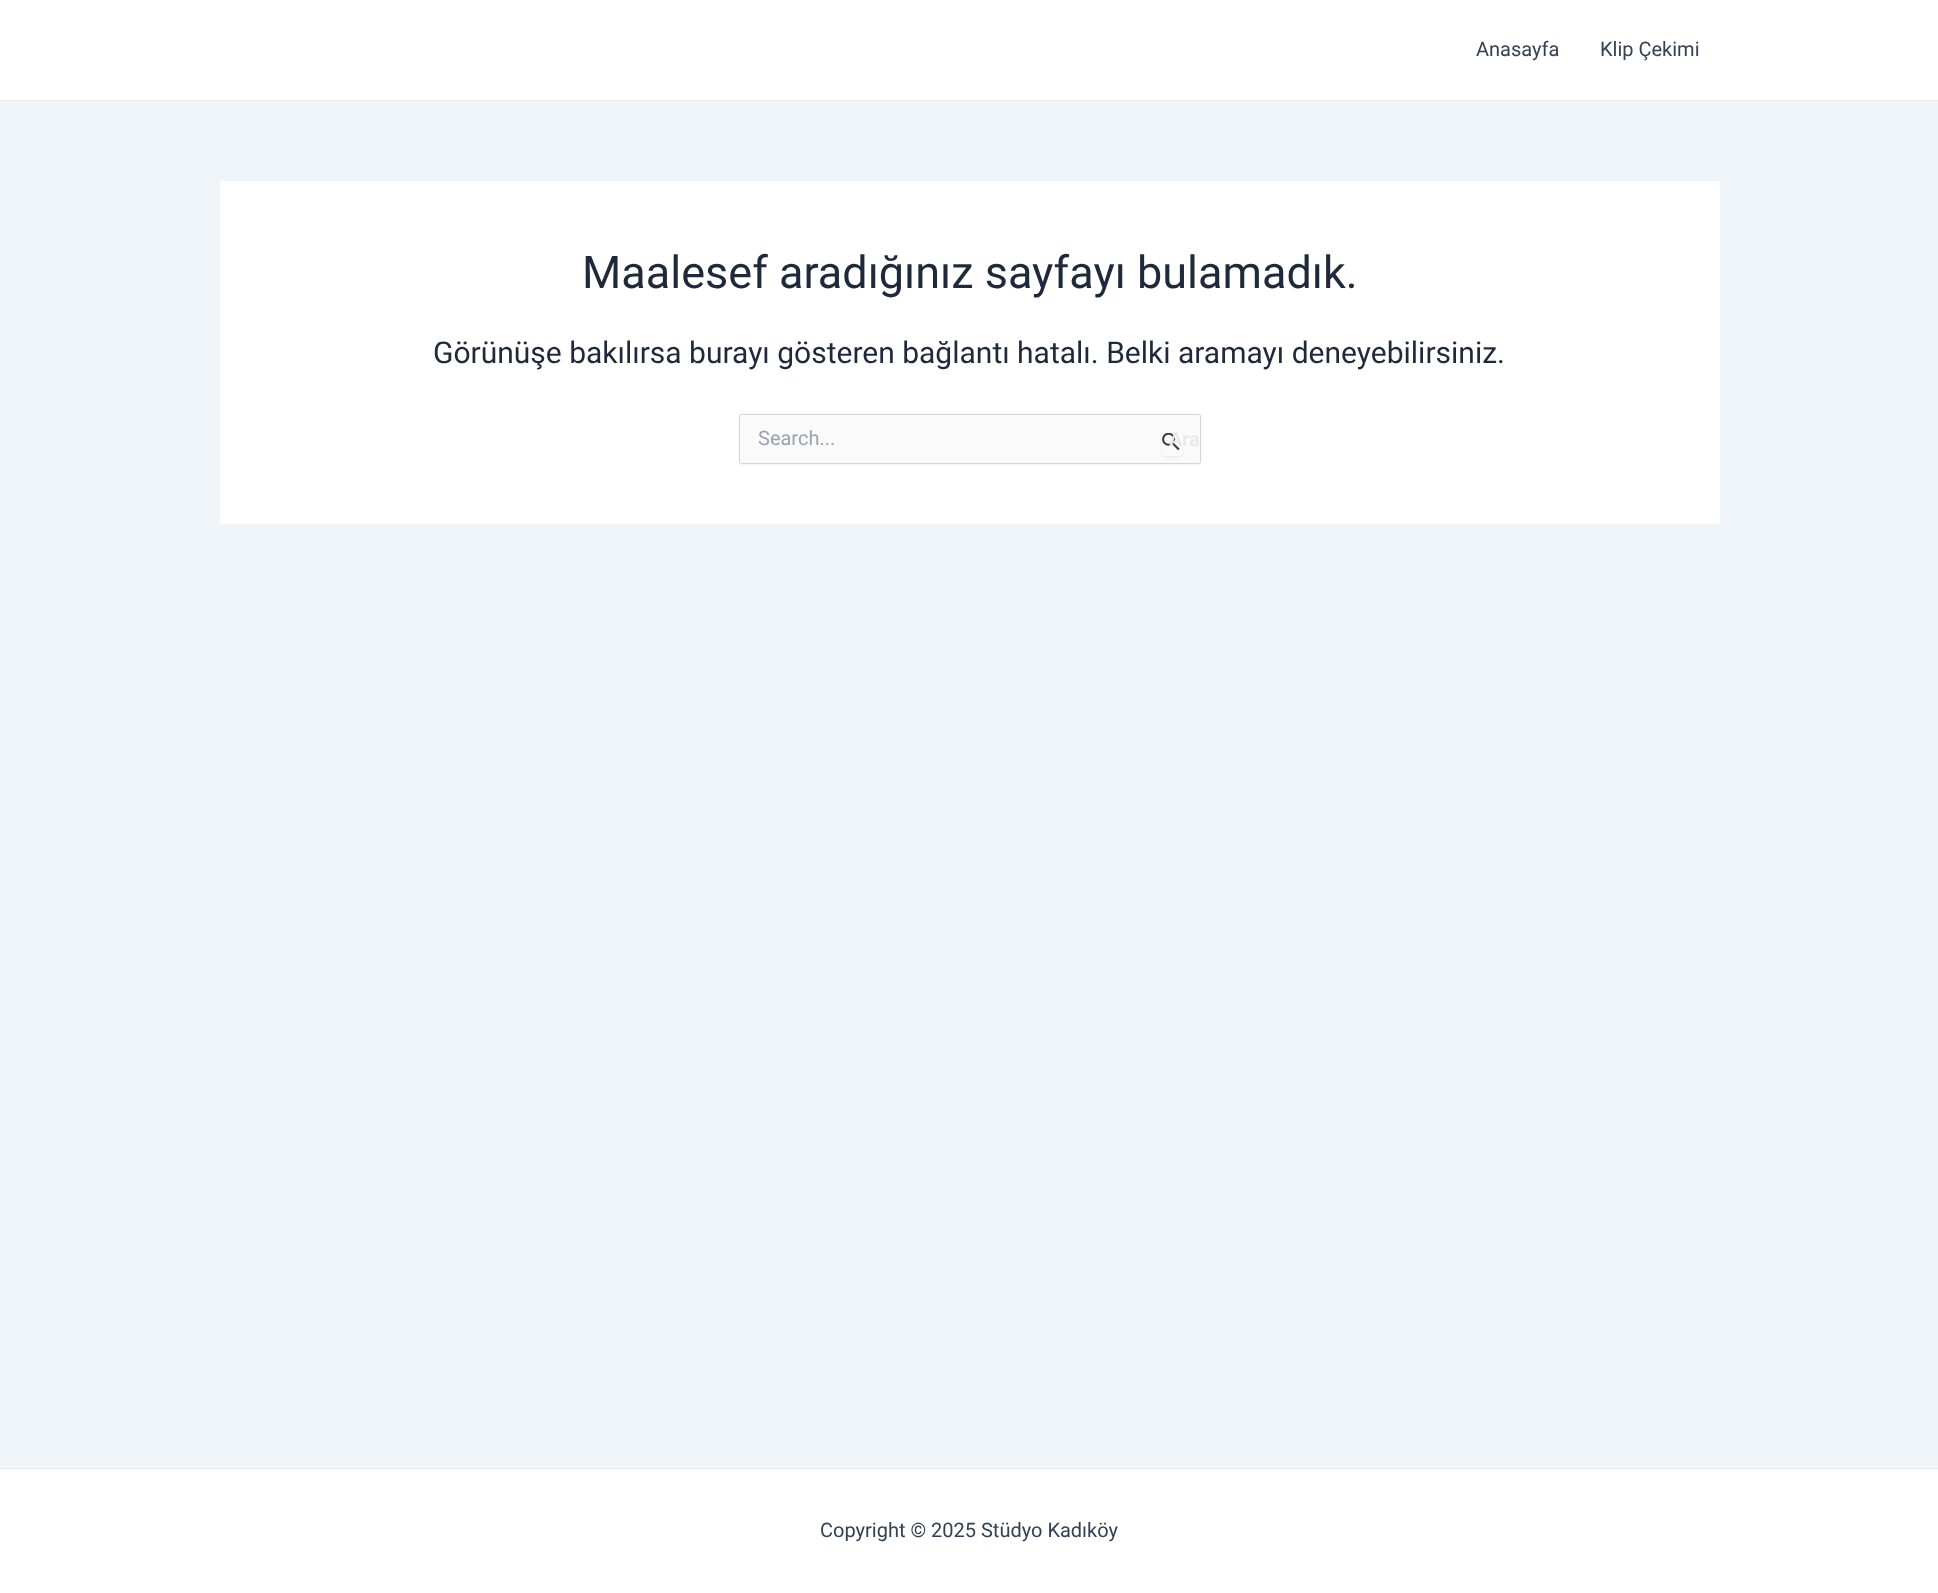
<!DOCTYPE html>
<meta charset="utf-8">
<style>body { margin: 0 } canvas { display: block }</style>
<canvas id="canvas" width="1938" height="1593"></canvas>
<img id="img1" src="images/1.png" hidden>
<script>
window.onload = function () {
    const canvas = document.getElementById('canvas');
    const context = canvas.getContext('2d');
    context.miterLimit = 4;
    context.fontKerning = 'normal';

    context.fillStyle = 'rgb(240, 245, 250)';
    context.fillRect(0, 0, 1938, 1593);
    context.fillStyle = 'rgb(255, 255, 255)';
    context.fillRect(0, 0, 1938, 100);
    context.fillStyle = 'rgb(234, 234, 234)';
    context.fillRect(0, 100, 1938, 1);
    context.fillStyle = 'rgb(255, 255, 255)';
    context.fillRect(220, 181, 1500, 343);
    context.fillStyle = 'rgba(0, 0, 0, 0.05)';
    context.filter = 'blur(1px)';
    context.beginPath();
    context.roundRect(739, 415, 462, 50, 2.5);
    context.fill();
    context.filter = 'none';
    context.fillStyle = 'rgb(250, 250, 250)';
    context.beginPath();
    context.roundRect(739.5, 414.5, 461, 49, 2);
    context.fill();
    context.strokeStyle = 'rgb(209, 213, 219)';
    context.stroke();
    context.save();
    context.beginPath();
    context.moveTo(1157, 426);
    context.lineTo(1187, 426);
    context.lineTo(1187, 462);
    context.lineTo(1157, 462);
    context.closePath();
    context.moveTo(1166, 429);
    context.lineTo(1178, 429);
    context.bezierCurveTo(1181, 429, 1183, 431, 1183, 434);
    context.lineTo(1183, 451);
    context.bezierCurveTo(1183, 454, 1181, 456, 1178, 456);
    context.lineTo(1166, 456);
    context.bezierCurveTo(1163, 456, 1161, 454, 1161, 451);
    context.lineTo(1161, 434);
    context.bezierCurveTo(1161, 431, 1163, 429, 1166, 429);
    context.closePath();
    context.clip('evenodd');
    context.fillStyle = 'rgba(0, 0, 0, 0.05)';
    context.filter = 'blur(1px)';
    context.beginPath();
    context.roundRect(1161, 430, 22, 28, 5);
    context.fill();
    context.filter = 'none';
    context.restore();
    context.drawImage(document.getElementById('img1'), 1162, 433, 18, 18);
    context.fillStyle = 'rgb(255, 255, 255)';
    context.fillRect(0, 1469, 1938, 124);
    context.fillStyle = 'rgb(234, 234, 234)';
    context.fillRect(0, 1468, 1938, 1);
    context.font = '20px Roboto';
    context.fillStyle = 'rgb(51, 65, 85)';
    context.fillText('Anasayfa', 1476, 56);
    context.fillText('Klip Çekimi', 1600, 56);
    context.font = '45px Roboto';
    context.fillStyle = 'rgb(30, 41, 59)';
    context.fillText('Maalesef aradığınız sayfayı bulamadık.', 582, 288);
    context.font = '30px Roboto';
    context.fillText('Görünüşe bakılırsa burayı gösteren bağlantı hatalı. Belki aramayı deneyebilirsiniz.', 433, 363);
    context.font = '20px Roboto';
    context.fillStyle = 'rgb(156, 163, 175)';
    context.fillText('Search...', 758, 445);
    context.font = '500 20px Roboto';
    context.fillStyle = 'rgb(232, 232, 232)';
    context.fillText('Ara', 1169, 446);
    context.font = '20px Roboto';
    context.fillStyle = 'rgb(51, 65, 85)';
    context.fillText('Copyright © 2025 Stüdyo Kadıköy', 820, 1537);
};
</script>
